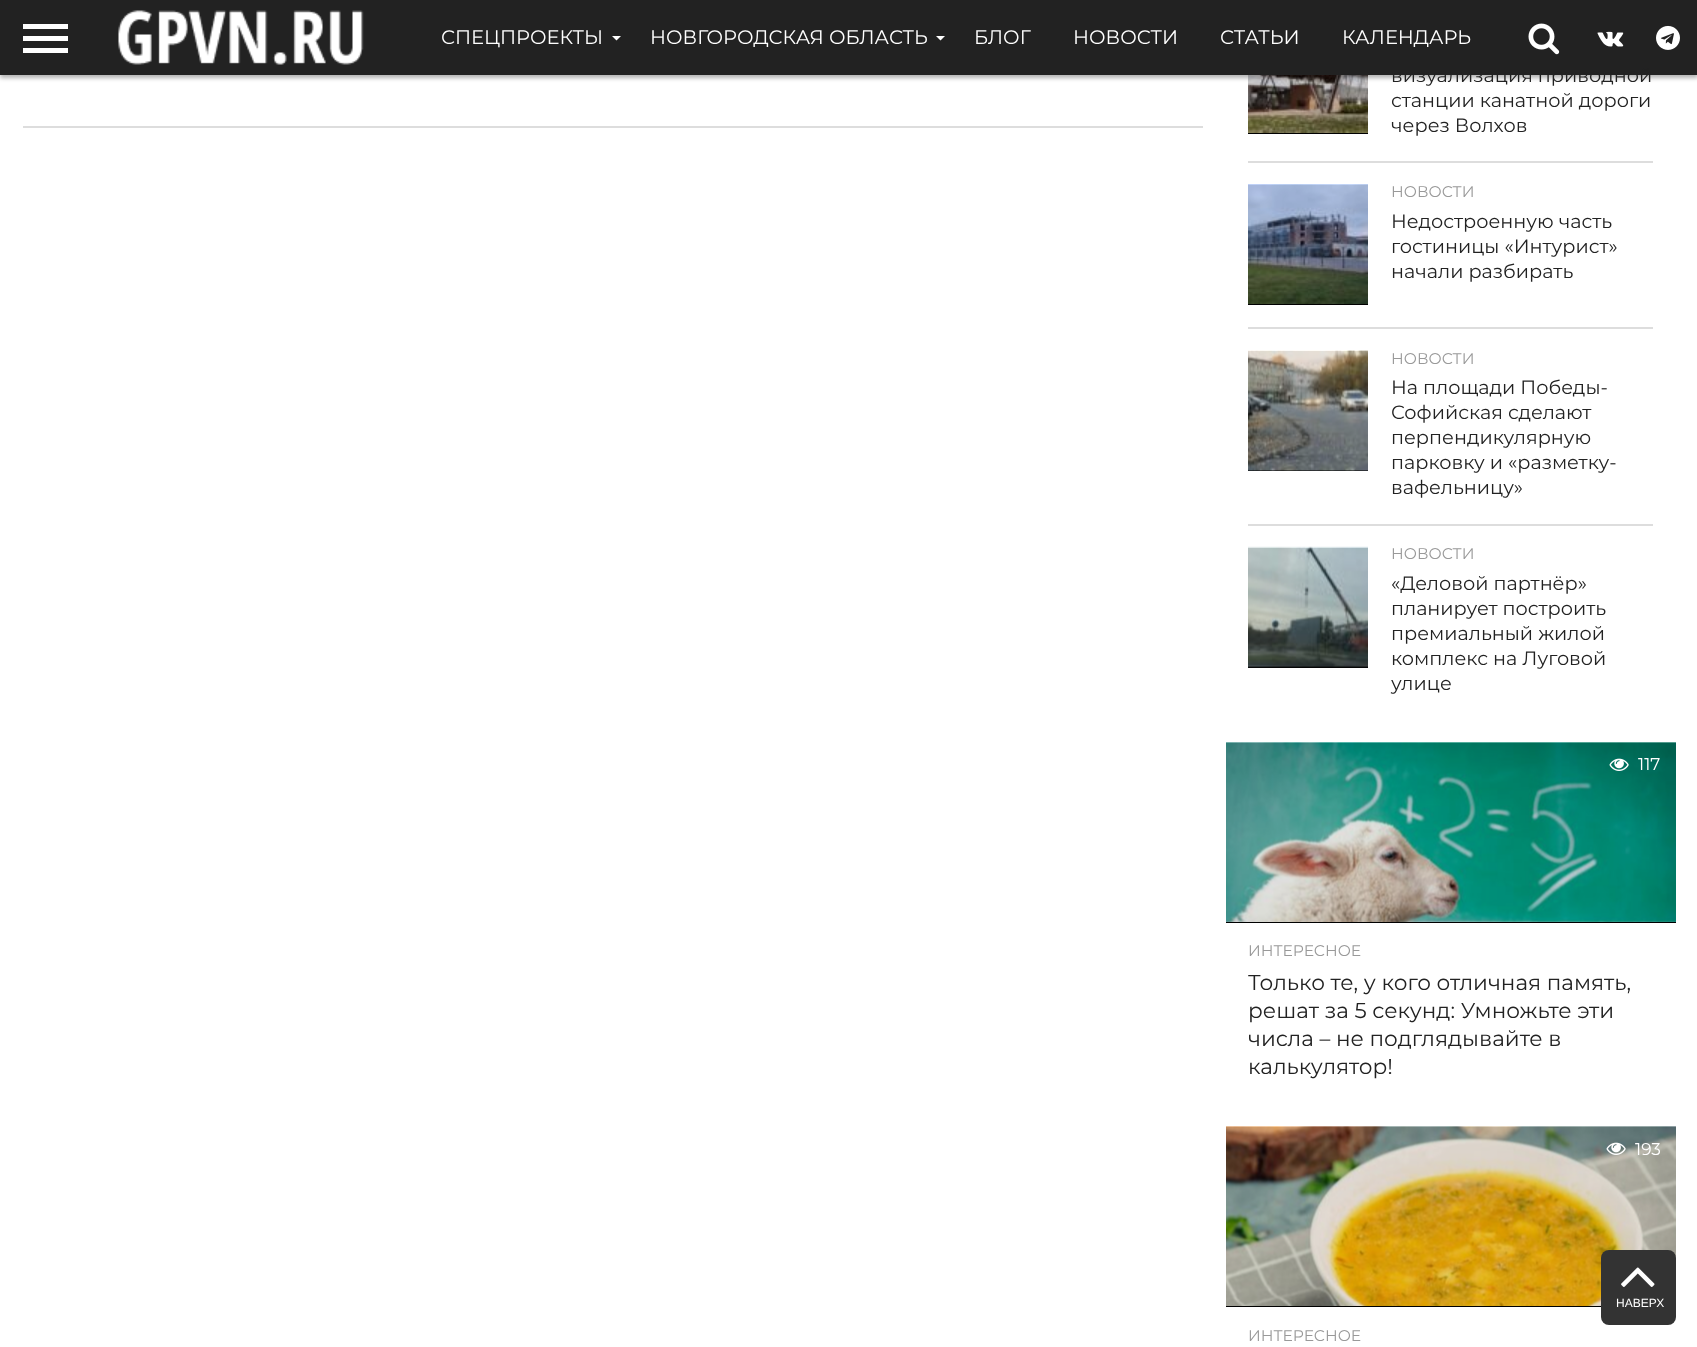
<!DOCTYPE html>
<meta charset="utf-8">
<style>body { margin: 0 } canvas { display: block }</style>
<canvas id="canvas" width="1697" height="1347"></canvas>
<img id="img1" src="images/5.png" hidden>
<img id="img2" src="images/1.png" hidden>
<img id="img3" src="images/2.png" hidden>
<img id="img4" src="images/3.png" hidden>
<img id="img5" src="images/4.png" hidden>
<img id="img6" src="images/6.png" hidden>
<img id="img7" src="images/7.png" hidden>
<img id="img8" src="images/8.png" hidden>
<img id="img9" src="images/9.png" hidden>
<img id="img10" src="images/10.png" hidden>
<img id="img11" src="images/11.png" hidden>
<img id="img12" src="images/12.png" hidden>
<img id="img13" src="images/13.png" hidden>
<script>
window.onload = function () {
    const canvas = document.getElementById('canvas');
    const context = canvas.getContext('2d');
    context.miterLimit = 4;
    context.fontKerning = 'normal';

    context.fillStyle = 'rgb(255, 255, 255)';
    context.fillRect(0, 0, 1697, 1347);
    context.fillStyle = 'rgb(0, 0, 0)';
    context.fillRect(1248, 75, 120, 59);
    context.drawImage(document.getElementById('img1'), 1248, 75, 120, 58);
    context.fillStyle = 'rgba(0, 0, 0, 0.3)';
    context.filter = 'blur(2px)';
    context.beginPath();
    context.rect(0, 3, 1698, 75);
    context.fill();
    context.filter = 'none';
    context.fillStyle = 'rgb(34, 34, 34)';
    context.fillRect(0, 0, 1697, 75);
    context.fillStyle = 'rgb(255, 255, 255)';
    context.fillRect(23, 24, 45, 5);
    context.fillRect(23, 36, 45, 5);
    context.fillRect(23, 48, 45, 5);
    context.drawImage(document.getElementById('img2'), 118, 10, 246, 55);
    context.beginPath();
    context.moveTo(612, 36);
    context.lineTo(621, 36);
    context.lineTo(616.5, 40.5);
    context.closePath();
    context.fill();
    context.beginPath();
    context.moveTo(936, 36);
    context.lineTo(945, 36);
    context.lineTo(940.5, 40.5);
    context.closePath();
    context.fill();
    context.drawImage(document.getElementById('img3'), 1528, 23, 32, 32);
    context.drawImage(document.getElementById('img4'), 1597, 31, 27, 16);
    context.drawImage(document.getElementById('img5'), 1656, 25, 24, 25);
    context.fillStyle = 'rgb(221, 221, 221)';
    context.fillRect(23, 126, 1180, 2);
    context.fillRect(1248, 161, 405, 2);
    context.fillStyle = 'rgb(0, 0, 0)';
    context.fillRect(1248, 185, 120, 120);
    context.drawImage(document.getElementById('img6'), 1248, 184, 120, 120);
    context.fillStyle = 'rgb(221, 221, 221)';
    context.fillRect(1248, 327, 405, 2);
    context.fillStyle = 'rgb(0, 0, 0)';
    context.fillRect(1248, 351, 120, 120);
    context.drawImage(document.getElementById('img7'), 1248, 350, 120, 121);
    context.fillStyle = 'rgb(221, 221, 221)';
    context.fillRect(1248, 524, 405, 2);
    context.fillStyle = 'rgb(0, 0, 0)';
    context.fillRect(1248, 548, 120, 120);
    context.drawImage(document.getElementById('img8'), 1248, 546, 120, 122);
    context.fillRect(1226, 743, 450, 180);
    context.drawImage(document.getElementById('img9'), 1226, 742, 450, 180);
    context.drawImage(document.getElementById('img10'), 1609, 758, 20, 13);
    context.fillRect(1226, 1127, 450, 180);
    context.drawImage(document.getElementById('img11'), 1226, 1126, 450, 180);
    context.drawImage(document.getElementById('img12'), 1606, 1142, 20, 13);
    context.fillStyle = 'rgb(51, 51, 51)';
    context.beginPath();
    context.roundRect(1601, 1250, 75, 75, 8);
    context.fill();
    context.drawImage(document.getElementById('img13'), 1621, 1267, 34, 20);
    context.font = '19.5px Montserrat';
    context.fillStyle = 'rgb(255, 255, 255)';
    context.fillText('СПЕЦПРОЕКТЫ', 441, 44);
    context.fillText('НОВГОРОДСКАЯ ОБЛАСТЬ', 650, 44);
    context.fillText('БЛОГ', 974, 44);
    context.fillText('НОВОСТИ', 1073, 44);
    context.fillText('СТАТЬИ', 1220, 44);
    context.fillText('КАЛЕНДАРЬ', 1342, 44);
    context.font = '19.25px Montserrat';
    context.fillStyle = 'rgb(34, 34, 34)';
    context.fillText('визуализация приводной', 1391, 82);
    context.fillText('станции канатной дороги', 1391, 107);
    context.fillText('через Волхов', 1391, 132);
    context.font = '15.5px Montserrat';
    context.fillStyle = 'rgb(153, 153, 153)';
    context.fillText('НОВОСТИ', 1391, 197);
    context.font = '19.25px Montserrat';
    context.fillStyle = 'rgb(34, 34, 34)';
    context.fillText('Недостроенную часть', 1391, 228);
    context.fillText('гостиницы «Интурист»', 1391, 253);
    context.fillText('начали разбирать', 1391, 278);
    context.font = '15.5px Montserrat';
    context.fillStyle = 'rgb(153, 153, 153)';
    context.fillText('НОВОСТИ', 1391, 364);
    context.font = '19.25px Montserrat';
    context.fillStyle = 'rgb(34, 34, 34)';
    context.fillText('На площади Победы-', 1391, 394);
    context.fillText('Софийская сделают', 1391, 419);
    context.fillText('перпендикулярную', 1391, 444);
    context.fillText('парковку и «разметку-', 1391, 469);
    context.fillText('вафельницу»', 1391, 494);
    context.font = '15.5px Montserrat';
    context.fillStyle = 'rgb(153, 153, 153)';
    context.fillText('НОВОСТИ', 1391, 559);
    context.font = '19.25px Montserrat';
    context.fillStyle = 'rgb(34, 34, 34)';
    context.fillText('«Деловой партнёр»', 1391, 590);
    context.fillText('планирует построить', 1391, 615);
    context.fillText('премиальный жилой', 1391, 640);
    context.fillText('комплекс на Луговой', 1391, 665);
    context.fillText('улице', 1391, 690);
    context.font = '17px Montserrat';
    context.fillStyle = 'rgb(255, 255, 255)';
    context.fillText('117', 1638, 770);
    context.font = '15.5px Montserrat';
    context.fillStyle = 'rgb(153, 153, 153)';
    context.fillText('ИНТЕРЕСНОЕ', 1248, 956);
    context.font = '21.6px Montserrat';
    context.fillStyle = 'rgb(34, 34, 34)';
    context.fillText('Только те, у кого отличная память,', 1248, 990);
    context.fillText('решат за 5 секунд: Умножьте эти', 1248, 1018);
    context.fillText('числа – не подглядывайте в', 1248, 1046);
    context.fillText('калькулятор!', 1248, 1074);
    context.font = '17px Montserrat';
    context.fillStyle = 'rgb(255, 255, 255)';
    context.fillText('193', 1635, 1155);
    context.font = '15.5px Montserrat';
    context.fillStyle = 'rgb(153, 153, 153)';
    context.fillText('ИНТЕРЕСНОЕ', 1248, 1341);
    context.font = '12px Liberation Sans';
    context.fillStyle = 'rgb(255, 255, 255)';
    context.fillText('НАВЕРХ', 1616, 1307);
};
</script>
